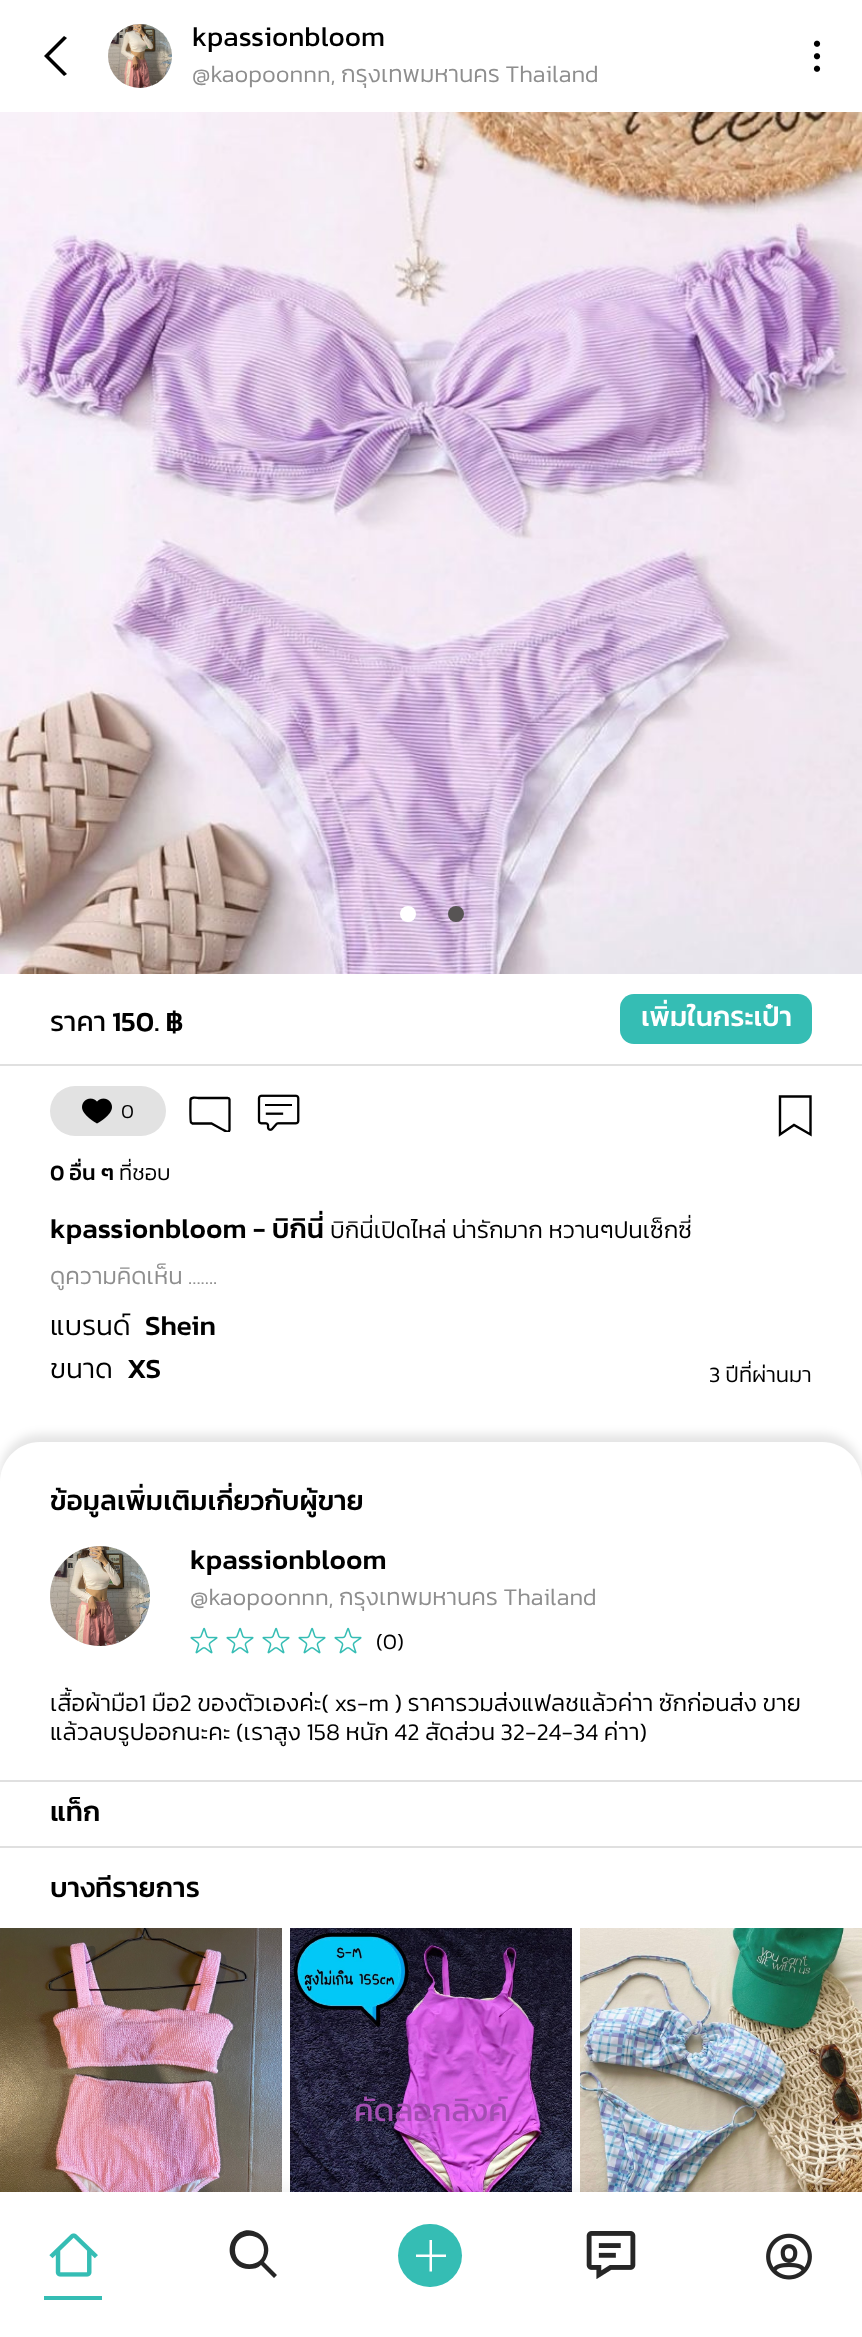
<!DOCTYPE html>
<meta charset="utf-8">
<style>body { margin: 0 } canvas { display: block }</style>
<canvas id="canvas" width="862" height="2337"></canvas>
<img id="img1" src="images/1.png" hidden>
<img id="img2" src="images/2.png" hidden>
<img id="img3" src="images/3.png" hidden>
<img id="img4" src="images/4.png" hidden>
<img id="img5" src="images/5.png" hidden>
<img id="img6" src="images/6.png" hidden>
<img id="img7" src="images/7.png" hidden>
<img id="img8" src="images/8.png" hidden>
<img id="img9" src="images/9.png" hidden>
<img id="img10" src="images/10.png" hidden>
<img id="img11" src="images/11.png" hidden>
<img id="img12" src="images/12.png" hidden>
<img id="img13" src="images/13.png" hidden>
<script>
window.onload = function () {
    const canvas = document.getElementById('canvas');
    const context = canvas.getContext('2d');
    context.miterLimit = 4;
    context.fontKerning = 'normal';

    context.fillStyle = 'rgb(255, 255, 255)';
    context.fillRect(0, 0, 862, 2337);
    context.fillStyle = 'rgb(0, 0, 0)';
    context.beginPath();
    context.moveTo(49, 56);
    context.lineTo(67, 38);
    context.lineTo(64, 36);
    context.lineTo(44, 56);
    context.lineTo(64, 76);
    context.lineTo(67, 74);
    context.closePath();
    context.fill('evenodd');
    context.fillStyle = 'rgb(241, 241, 241)';
    context.beginPath();
    context.arc(140, 56, 32, 0, 2 * Math.PI);
    context.fill();
    context.drawImage(document.getElementById('img1'), 108, 24, 64, 64);
    context.drawImage(document.getElementById('img2'), 813, 40, 8, 32);
    context.drawImage(document.getElementById('img3'), 0, 112, 862, 862);
    context.fillStyle = 'rgb(255, 255, 255)';
    context.beginPath();
    context.arc(408, 914, 8, 0, 2 * Math.PI);
    context.fill();
    context.fillStyle = 'rgb(87, 84, 84)';
    context.beginPath();
    context.arc(456, 914, 8, 0, 2 * Math.PI);
    context.fill();
    context.fillStyle = 'rgb(224, 224, 224)';
    context.fillRect(0, 1064, 862, 2);
    context.fillStyle = 'rgb(53, 189, 180)';
    context.beginPath();
    context.roundRect(620, 994, 192, 50, 14);
    context.fill();
    context.fillStyle = 'rgb(226, 226, 226)';
    context.beginPath();
    context.roundRect(50, 1086, 116, 50, 25);
    context.fill();
    context.drawImage(document.getElementById('img4'), 82, 1098, 30, 26);
    context.save();
    context.beginPath();
    context.rect(188, 1096, 44, 36);
    context.clip();
    context.beginPath();
    context.moveTo(229.5, 1123.5);
    context.lineTo(229.5, 1099.5);
    context.lineTo(229, 1098.5);
    context.lineTo(227.5, 1098);
    context.lineTo(198.5, 1098);
    context.bezierCurveTo(197.5, 1098, 190.5, 1096.5, 190.5, 1100);
    context.bezierCurveTo(190.5, 1103, 190, 1121, 191, 1122.5);
    context.lineTo(192.5, 1123.5);
    context.lineTo(211.5, 1123.5);
    context.lineTo(221.5, 1129);
    context.bezierCurveTo(223, 1129.5, 228.5, 1134, 229.5, 1130);
    context.closePath();
    context.strokeStyle = 'rgb(0, 0, 0)';
    context.lineWidth = 2.3;
    context.stroke();
    context.restore();
    context.drawImage(document.getElementById('img5'), 257, 1094, 43, 37);
    context.beginPath();
    context.moveTo(780, 1134.5);
    context.lineTo(780, 1096.5);
    context.lineTo(810.5, 1096.5);
    context.lineTo(810.5, 1134.5);
    context.lineTo(794, 1125);
    context.closePath();
    context.strokeStyle = 'rgb(0, 0, 0)';
    context.lineWidth = 2.4;
    context.stroke();
    context.fillStyle = 'rgba(0, 0, 0, 0.1)';
    context.filter = 'blur(5px)';
    context.beginPath();
    context.roundRect(0, 1434, 862, 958, 40);
    context.fill();
    context.filter = 'none';
    context.fillStyle = 'rgb(255, 255, 255)';
    context.beginPath();
    context.moveTo(40, 1442);
    context.lineTo(822, 1442);
    context.bezierCurveTo(844, 1442, 862, 1460, 862, 1482);
    context.lineTo(862, 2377);
    context.lineTo(0, 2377);
    context.lineTo(0, 1482);
    context.bezierCurveTo(0, 1460, 18, 1442, 40, 1442);
    context.closePath();
    context.fill();
    context.fillStyle = 'rgb(241, 241, 241)';
    context.beginPath();
    context.arc(100, 1596, 50, 0, 2 * Math.PI);
    context.fill();
    context.drawImage(document.getElementById('img6'), 50, 1546, 100, 100);
    context.drawImage(document.getElementById('img7'), 190, 1627, 28, 27);
    context.drawImage(document.getElementById('img7'), 226, 1627, 28, 27);
    context.drawImage(document.getElementById('img7'), 262, 1627, 28, 27);
    context.drawImage(document.getElementById('img7'), 298, 1627, 28, 27);
    context.drawImage(document.getElementById('img7'), 334, 1627, 28, 27);
    context.fillStyle = 'rgb(224, 224, 224)';
    context.fillRect(0, 1780, 862, 2);
    context.fillRect(0, 1846, 862, 2);
    context.drawImage(document.getElementById('img8'), 0, 1928, 282, 264);
    context.drawImage(document.getElementById('img9'), 290, 1928, 282, 264);
    context.drawImage(document.getElementById('img10'), 580, 1928, 282, 264);
    context.fillStyle = 'rgba(0, 0, 0, 0.06)';
    context.filter = 'blur(8px)';
    context.beginPath();
    context.rect(0, 2188, 862, 146);
    context.fill();
    context.filter = 'none';
    context.fillStyle = 'rgb(255, 255, 255)';
    context.fillRect(0, 2192, 862, 145);
    context.drawImage(document.getElementById('img11'), 49, 2233, 49, 44);
    context.fillStyle = 'rgb(53, 189, 180)';
    context.fillRect(44, 2296, 58, 4);
    context.fillStyle = 'rgb(38, 38, 38)';
    context.beginPath();
    context.moveTo(249, 2269);
    context.bezierCurveTo(240, 2269, 232, 2263, 230, 2254);
    context.bezierCurveTo(229, 2249, 230, 2243, 233, 2239);
    context.bezierCurveTo(248, 2217, 280, 2241, 264, 2262);
    context.lineTo(277, 2275);
    context.lineTo(274, 2278);
    context.lineTo(261, 2265);
    context.bezierCurveTo(258, 2268, 254, 2269, 249, 2269);
    context.closePath();
    context.moveTo(264, 2250);
    context.bezierCurveTo(264, 2269, 235, 2269, 235, 2250);
    context.bezierCurveTo(235, 2231, 264, 2231, 264, 2250);
    context.closePath();
    context.fill('evenodd');
    context.fillStyle = 'rgb(53, 189, 180)';
    context.beginPath();
    context.roundRect(398, 2224, 64, 63, 31.5);
    context.fill();
    context.fillStyle = 'rgb(255, 255, 255)';
    context.beginPath();
    context.moveTo(432, 2240);
    context.lineTo(429.5, 2240);
    context.lineTo(429.5, 2254.5);
    context.lineTo(416, 2254.5);
    context.lineTo(416, 2257);
    context.lineTo(429.5, 2257);
    context.lineTo(429.5, 2271.5);
    context.lineTo(432, 2271.5);
    context.lineTo(432, 2257);
    context.lineTo(446, 2257);
    context.lineTo(446, 2254.5);
    context.lineTo(432, 2254.5);
    context.closePath();
    context.fill('evenodd');
    context.drawImage(document.getElementById('img12'), 586, 2231, 50, 48);
    context.drawImage(document.getElementById('img13'), 766, 2233, 46, 47);
    context.font = '28px Kanit';
    context.fillStyle = 'rgb(0, 0, 0)';
    context.fillText('kpassionbloom', 192, 46);
    context.font = '300 24px Kanit';
    context.fillStyle = 'rgb(142, 142, 142)';
    context.fillText('@kaopoonnn, กรุงเทพมหานคร Thailand', 192, 82);
    context.font = '28px Kanit';
    context.fillStyle = 'rgb(0, 0, 0)';
    context.fillText('ราคา', 50, 1031);
    context.font = '500 28px Kanit';
    context.fillText('150. ฿', 112, 1031);
    context.fillStyle = 'rgb(255, 255, 255)';
    context.fillText('เพิ่มในกระเป๋า', 641, 1026);
    context.font = '300 20px Kanit';
    context.fillStyle = 'rgb(0, 0, 0)';
    context.fillText('0', 121, 1118);
    context.font = '500 22px Kanit';
    context.fillText('0 อื่น ๆ', 50, 1180);
    context.font = '300 22px Kanit';
    context.fillText('ที่ชอบ', 119, 1180);
    context.font = '500 28px Kanit';
    context.fillText('kpassionbloom - บิกินี่', 50, 1238);
    context.font = '300 24px Kanit';
    context.fillText('บิกินี่เปิดไหล่ น่ารักมาก หวานๆปนเซ็กซี่', 330, 1238);
    context.fillStyle = 'rgb(142, 142, 142)';
    context.fillText('ดูความคิดเห็น .......', 50, 1284);
    context.font = '300 28px Kanit';
    context.fillStyle = 'rgb(0, 0, 0)';
    context.fillText('แบรนด์', 50, 1335);
    context.font = '500 28px Kanit';
    context.fillText('Shein', 145, 1335);
    context.font = '300 28px Kanit';
    context.fillText('ขนาด', 50, 1378);
    context.font = '500 28px Kanit';
    context.fillText('XS', 127, 1378);
    context.font = '300 22px Kanit';
    context.fillText('3 ปีที่ผ่านมา', 709, 1382);
    context.font = '500 28px Kanit';
    context.fillText('ข้อมูลเพิ่มเติมเกี่ยวกับผู้ขาย', 50, 1510);
    context.fillText('kpassionbloom', 190, 1569);
    context.font = '300 24px Kanit';
    context.fillStyle = 'rgb(142, 142, 142)';
    context.fillText('@kaopoonnn, กรุงเทพมหานคร Thailand', 190, 1605);
    context.font = '300 22px Kanit';
    context.fillStyle = 'rgb(0, 0, 0)';
    context.fillText('(0)', 376, 1649);
    context.font = '300 24px Kanit';
    context.fillText('เสื้อผ้ามือ1 มือ2 ของตัวเองค่ะ( xs-m ) ราคารวมส่งแฟลชแล้วค่าา ซักก่อนส่ง ขาย', 50, 1711);
    context.fillText('แล้วลบรูปออกนะคะ (เราสูง 158 หนัก 42 สัดส่วน 32-24-34 ค่าา)', 50, 1740);
    context.font = '500 28px Kanit';
    context.fillText('แท็ก', 50, 1821);
    context.fillText('บางทีรายการ', 50, 1897);
    context.font = '32px Kanit';
    context.fillStyle = 'rgb(163, 78, 178)';
    context.fillText('คัดลอกลิงค์', 354, 2121);
};
</script>
